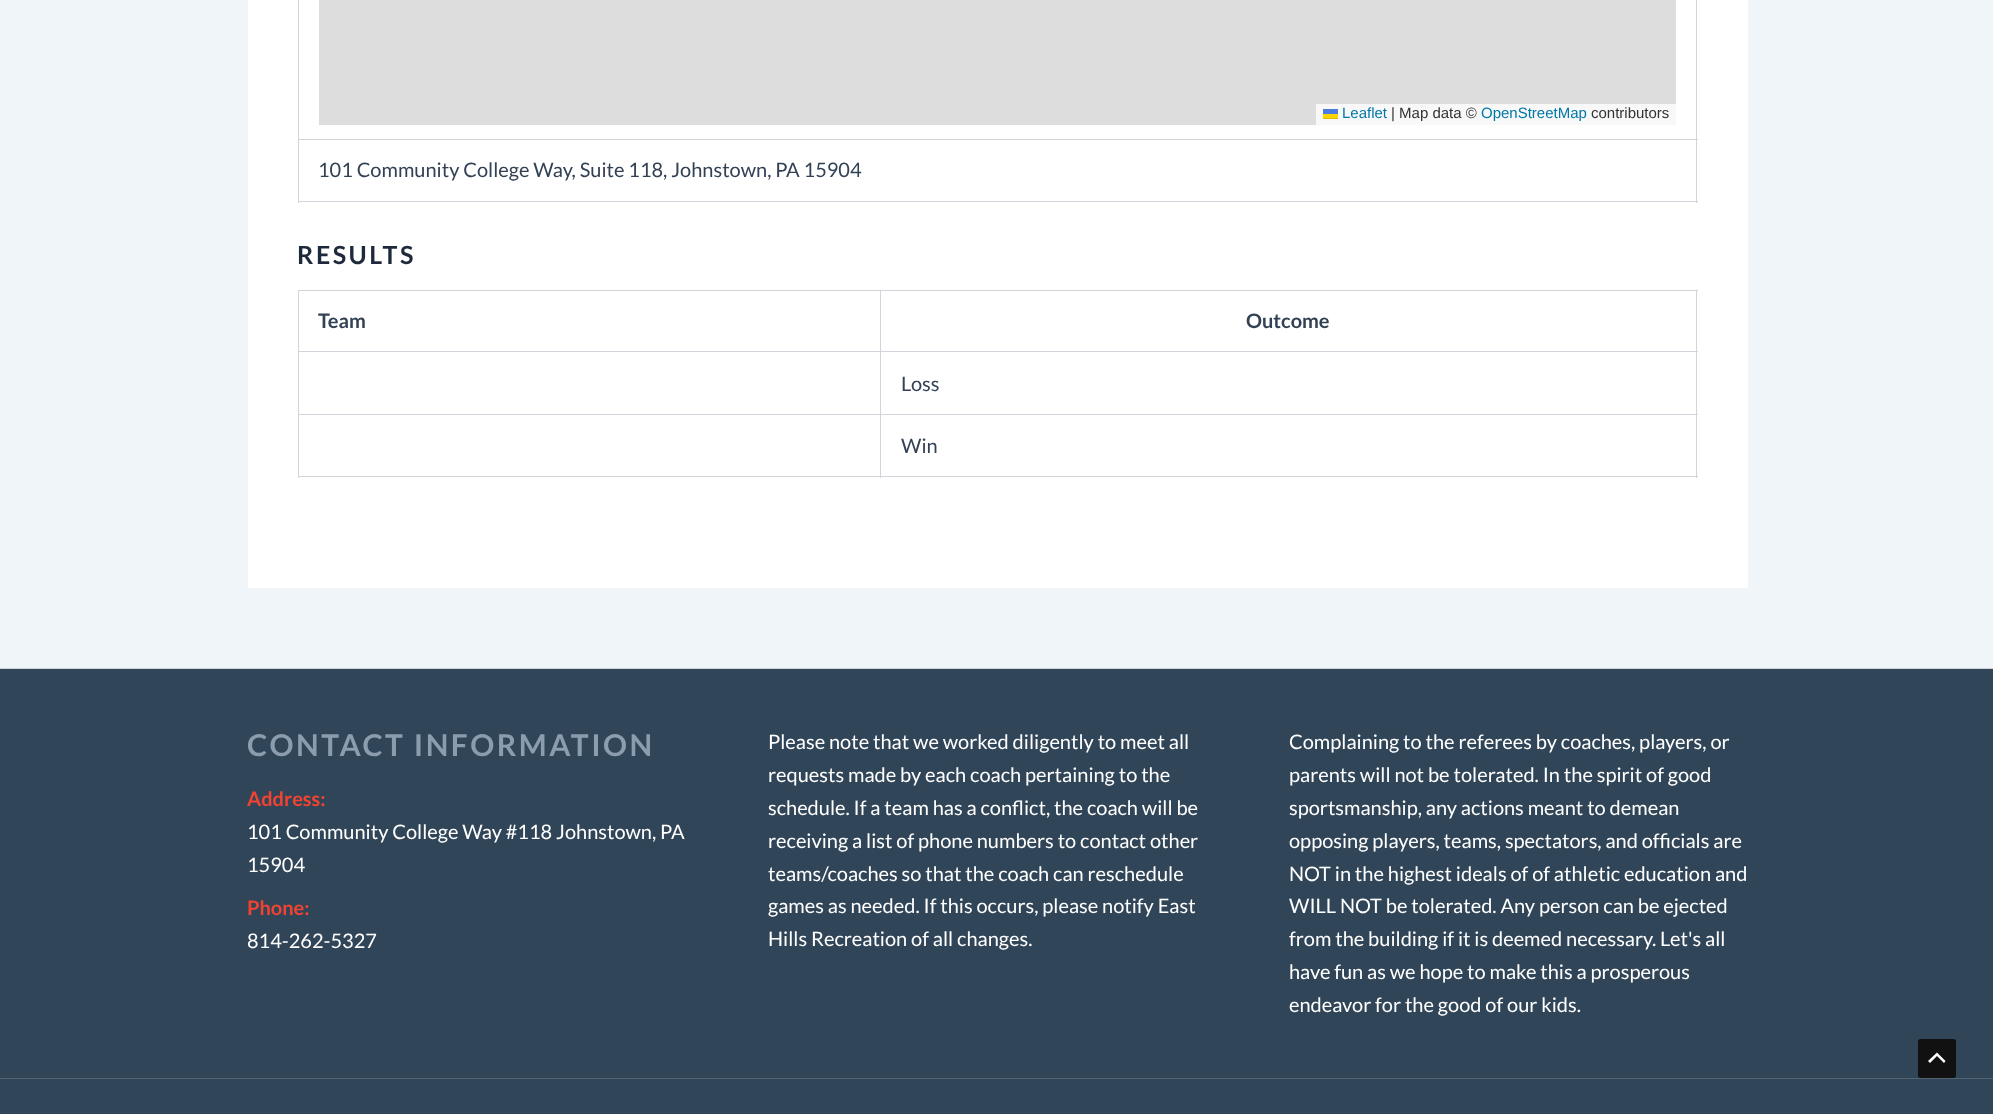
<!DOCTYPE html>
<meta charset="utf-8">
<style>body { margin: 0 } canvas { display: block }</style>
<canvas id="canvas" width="1993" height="1114"></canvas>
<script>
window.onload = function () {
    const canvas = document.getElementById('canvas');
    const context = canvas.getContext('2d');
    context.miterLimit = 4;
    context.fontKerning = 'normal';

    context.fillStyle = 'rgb(240, 245, 250)';
    context.fillRect(0, 0, 1993, 1114);
    context.fillStyle = 'rgb(255, 255, 255)';
    context.fillRect(248, 0, 1500, 588);
    context.fillStyle = 'rgb(209, 213, 219)';
    context.fillRect(298, 0, 1, 203);
    context.fillRect(1696, 0, 1, 203);
    context.fillRect(299, 139, 1399, 1);
    context.fillStyle = 'rgb(221, 221, 221)';
    context.fillRect(319, 0, 1357, 125);
    context.fillStyle = 'rgb(248, 248, 248)';
    context.fillRect(1316, 104, 360, 21);
    context.fillStyle = 'rgb(76, 123, 225)';
    context.fillRect(1323, 109, 15, 5);
    context.fillStyle = 'rgb(255, 213, 0)';
    context.fillRect(1323, 114, 15, 4);
    context.fillStyle = 'rgb(224, 188, 0)';
    context.fillRect(1323, 118, 15, 1);
    context.fillStyle = 'rgb(209, 213, 219)';
    context.fillRect(299, 201, 1399, 1);
    context.fillRect(298, 290, 1400, 1);
    context.fillRect(298, 290, 1, 188);
    context.fillRect(880, 291, 1, 187);
    context.fillRect(299, 351, 582, 1);
    context.fillRect(1696, 291, 1, 187);
    context.fillRect(881, 351, 817, 1);
    context.fillRect(299, 414, 1399, 1);
    context.fillRect(299, 476, 1399, 1);
    context.fillStyle = 'rgb(49, 69, 88)';
    context.fillRect(0, 669, 1993, 409);
    context.fillStyle = 'rgb(209, 213, 219)';
    context.fillRect(0, 668, 1993, 1);
    context.fillStyle = 'rgb(49, 69, 88)';
    context.fillRect(0, 1079, 1993, 35);
    context.fillStyle = 'rgb(82, 99, 114)';
    context.fillRect(0, 1078, 1993, 1);
    context.fillStyle = 'rgb(17, 17, 17)';
    context.beginPath();
    context.roundRect(1918, 1039, 38, 39, 2.5);
    context.fill();
    context.fillStyle = 'rgb(255, 255, 255)';
    context.beginPath();
    context.moveTo(1945.5, 1061);
    context.lineTo(1937, 1052.5);
    context.lineTo(1928, 1061);
    context.lineTo(1930, 1063);
    context.lineTo(1937, 1056);
    context.lineTo(1944, 1063);
    context.closePath();
    context.fill();
    context.font = '15px Liberation Sans';
    context.fillStyle = 'rgb(0, 120, 168)';
    context.fillText('Leaflet', 1342, 118);
    context.fillStyle = 'rgb(51, 51, 51)';
    context.fillText('| Map data ©', 1391, 118);
    context.fillStyle = 'rgb(0, 120, 168)';
    context.fillText('OpenStreetMap', 1481, 118);
    context.fillStyle = 'rgb(51, 51, 51)';
    context.fillText('contributors', 1591, 118);
    context.font = '20px Lato';
    context.fillStyle = 'rgb(51, 65, 85)';
    context.fillText('101 Community College Way, Suite 118, Johnstown, PA 15904', 318, 177);
    context.letterSpacing = '2.5px';
    context.font = 'bold 25px Lato';
    context.fillStyle = 'rgb(30, 41, 59)';
    context.fillText('RESULTS', 297, 264);
    context.letterSpacing = '0px';
    context.font = 'bold 20px Lato';
    context.fillStyle = 'rgb(51, 65, 85)';
    context.fillText('Team', 318, 328);
    context.fillText('Outcome', 1246, 328);
    context.font = '20px Lato';
    context.fillText('Loss', 901, 391);
    context.fillText('Win', 901, 453);
    context.letterSpacing = '2.5px';
    context.font = 'bold 30px Lato';
    context.fillStyle = 'rgb(138, 156, 174)';
    context.fillText('CONTACT INFORMATION', 247, 756);
    context.letterSpacing = '0px';
    context.font = 'bold 20px Lato';
    context.fillStyle = 'rgb(241, 67, 50)';
    context.fillText('Address:', 247, 806);
    context.font = '20px Lato';
    context.fillStyle = 'rgb(255, 255, 255)';
    context.fillText('101 Community College Way #118 Johnstown, PA', 247, 839);
    context.fillText('15904', 247, 872);
    context.font = 'bold 20px Lato';
    context.fillStyle = 'rgb(241, 67, 50)';
    context.fillText('Phone:', 247, 915);
    context.font = '20px Lato';
    context.fillStyle = 'rgb(255, 255, 255)';
    context.fillText('814-262-5327', 247, 948);
    context.fillText('Please note that we worked diligently to meet all', 768, 749);
    context.fillText('requests made by each coach pertaining to the', 768, 782);
    context.fillText('schedule. If a team has a conflict, the coach will be', 768, 815);
    context.fillText('receiving a list of phone numbers to contact other', 768, 848);
    context.fillText('teams/coaches so that the coach can reschedule', 768, 881);
    context.fillText('games as needed. If this occurs, please notify East', 768, 913);
    context.fillText('Hills Recreation of all changes.', 768, 946);
    context.fillText('Complaining to the referees by coaches, players, or', 1289, 749);
    context.fillText('parents will not be tolerated. In the spirit of good', 1289, 782);
    context.fillText('sportsmanship, any actions meant to demean', 1289, 815);
    context.fillText('opposing players, teams, spectators, and officials are', 1289, 848);
    context.fillText('NOT in the highest ideals of of athletic education and', 1289, 881);
    context.fillText('WILL NOT be tolerated. Any person can be ejected', 1289, 913);
    context.fillText('from the building if it is deemed necessary. Let\'s all', 1289, 946);
    context.fillText('have fun as we hope to make this a prosperous', 1289, 979);
    context.fillText('endeavor for the good of our kids.', 1289, 1012);
};
</script>
